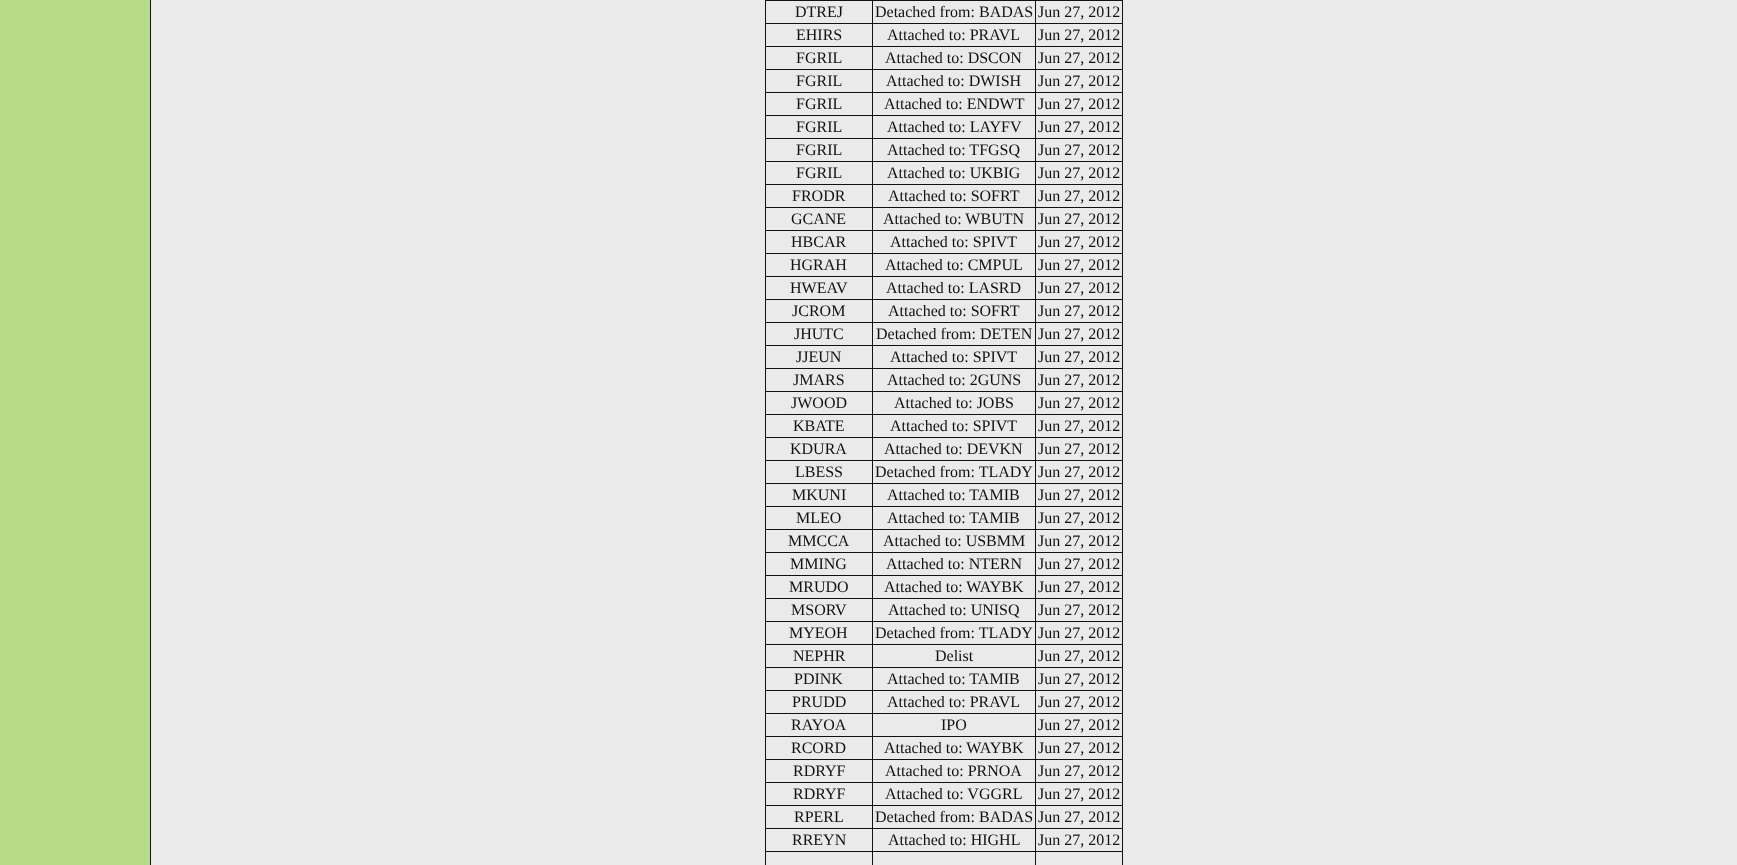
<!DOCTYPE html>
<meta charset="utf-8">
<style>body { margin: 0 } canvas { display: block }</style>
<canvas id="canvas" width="1737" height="865"></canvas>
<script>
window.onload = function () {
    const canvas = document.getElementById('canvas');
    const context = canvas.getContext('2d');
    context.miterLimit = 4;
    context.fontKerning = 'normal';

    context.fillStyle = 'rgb(234, 234, 234)';
    context.fillRect(0, 0, 1737, 865);
    context.fillStyle = 'rgb(184, 219, 138)';
    context.fillRect(0, 0, 150, 865);
    context.fillStyle = 'rgb(17, 17, 17)';
    context.fillRect(150, 0, 1, 865);
    context.fillRect(765, 0, 358, 1);
    context.fillRect(872, 1, 1, 864);
    context.fillRect(765, 23, 108, 1);
    context.fillRect(765, 1, 1, 23);
    context.fillRect(1035, 1, 1, 864);
    context.fillRect(873, 23, 163, 1);
    context.fillRect(1122, 1, 1, 864);
    context.fillRect(1036, 23, 87, 1);
    context.fillRect(765, 46, 358, 1);
    context.fillRect(765, 24, 1, 23);
    context.fillRect(765, 69, 358, 1);
    context.fillRect(765, 47, 1, 23);
    context.fillRect(765, 92, 358, 1);
    context.fillRect(765, 70, 1, 23);
    context.fillRect(765, 115, 358, 1);
    context.fillRect(765, 93, 1, 23);
    context.fillRect(765, 138, 358, 1);
    context.fillRect(765, 116, 1, 23);
    context.fillRect(765, 161, 358, 1);
    context.fillRect(765, 139, 1, 23);
    context.fillRect(765, 184, 358, 1);
    context.fillRect(765, 162, 1, 23);
    context.fillRect(765, 207, 358, 1);
    context.fillRect(765, 185, 1, 23);
    context.fillRect(765, 230, 358, 1);
    context.fillRect(765, 208, 1, 23);
    context.fillRect(765, 253, 358, 1);
    context.fillRect(765, 231, 1, 23);
    context.fillRect(765, 276, 358, 1);
    context.fillRect(765, 254, 1, 23);
    context.fillRect(765, 299, 358, 1);
    context.fillRect(765, 277, 1, 23);
    context.fillRect(765, 322, 358, 1);
    context.fillRect(765, 300, 1, 23);
    context.fillRect(765, 345, 358, 1);
    context.fillRect(765, 323, 1, 23);
    context.fillRect(765, 368, 358, 1);
    context.fillRect(765, 346, 1, 23);
    context.fillRect(765, 391, 358, 1);
    context.fillRect(765, 369, 1, 23);
    context.fillRect(765, 414, 358, 1);
    context.fillRect(765, 392, 1, 23);
    context.fillRect(765, 437, 358, 1);
    context.fillRect(765, 415, 1, 23);
    context.fillRect(765, 460, 358, 1);
    context.fillRect(765, 438, 1, 23);
    context.fillRect(765, 483, 358, 1);
    context.fillRect(765, 461, 1, 23);
    context.fillRect(765, 506, 358, 1);
    context.fillRect(765, 484, 1, 23);
    context.fillRect(765, 529, 358, 1);
    context.fillRect(765, 507, 1, 23);
    context.fillRect(765, 552, 358, 1);
    context.fillRect(765, 530, 1, 23);
    context.fillRect(765, 575, 358, 1);
    context.fillRect(765, 553, 1, 23);
    context.fillRect(765, 598, 358, 1);
    context.fillRect(765, 576, 1, 23);
    context.fillRect(765, 621, 358, 1);
    context.fillRect(765, 599, 1, 23);
    context.fillRect(765, 644, 358, 1);
    context.fillRect(765, 622, 1, 23);
    context.fillRect(765, 667, 358, 1);
    context.fillRect(765, 645, 1, 23);
    context.fillRect(765, 690, 358, 1);
    context.fillRect(765, 668, 1, 23);
    context.fillRect(765, 713, 358, 1);
    context.fillRect(765, 691, 1, 23);
    context.fillRect(765, 736, 358, 1);
    context.fillRect(765, 714, 1, 23);
    context.fillRect(765, 759, 358, 1);
    context.fillRect(765, 737, 1, 23);
    context.fillRect(765, 782, 358, 1);
    context.fillRect(765, 760, 1, 23);
    context.fillRect(765, 805, 358, 1);
    context.fillRect(765, 783, 1, 23);
    context.fillRect(765, 828, 358, 1);
    context.fillRect(765, 806, 1, 23);
    context.fillRect(765, 851, 358, 1);
    context.fillRect(765, 829, 1, 36);
    context.font = '16px Liberation Serif';
    context.fillText('DTREJ', 795, 17);
    context.fillText('Detached from: BADAS', 875, 17);
    context.fillText('Jun 27, 2012', 1038, 17);
    context.fillText('EHIRS', 796, 40);
    context.fillText('Attached to: PRAVL', 887, 40);
    context.fillText('Jun 27, 2012', 1038, 40);
    context.fillText('FGRIL', 796, 63);
    context.fillText('Attached to: DSCON', 885, 63);
    context.fillText('Jun 27, 2012', 1038, 63);
    context.fillText('FGRIL', 796, 86);
    context.fillText('Attached to: DWISH', 886, 86);
    context.fillText('Jun 27, 2012', 1038, 86);
    context.fillText('FGRIL', 796, 109);
    context.fillText('Attached to: ENDWT', 884, 109);
    context.fillText('Jun 27, 2012', 1038, 109);
    context.fillText('FGRIL', 796, 132);
    context.fillText('Attached to: LAYFV', 887, 132);
    context.fillText('Jun 27, 2012', 1038, 132);
    context.fillText('FGRIL', 796, 155);
    context.fillText('Attached to: TFGSQ', 887, 155);
    context.fillText('Jun 27, 2012', 1038, 155);
    context.fillText('FGRIL', 796, 178);
    context.fillText('Attached to: UKBIG', 887, 178);
    context.fillText('Jun 27, 2012', 1038, 178);
    context.fillText('FRODR', 792, 201);
    context.fillText('Attached to: SOFRT', 888, 201);
    context.fillText('Jun 27, 2012', 1038, 201);
    context.fillText('GCANE', 791, 224);
    context.fillText('Attached to: WBUTN', 883, 224);
    context.fillText('Jun 27, 2012', 1038, 224);
    context.fillText('HBCAR', 791, 247);
    context.fillText('Attached to: SPIVT', 890, 247);
    context.fillText('Jun 27, 2012', 1038, 247);
    context.fillText('HGRAH', 790, 270);
    context.fillText('Attached to: CMPUL', 885, 270);
    context.fillText('Jun 27, 2012', 1038, 270);
    context.fillText('HWEAV', 790, 293);
    context.fillText('Attached to: LASRD', 886, 293);
    context.fillText('Jun 27, 2012', 1038, 293);
    context.fillText('JCROM', 792, 316);
    context.fillText('Attached to: SOFRT', 888, 316);
    context.fillText('Jun 27, 2012', 1038, 316);
    context.fillText('JHUTC', 794, 339);
    context.fillText('Detached from: DETEN', 876, 339);
    context.fillText('Jun 27, 2012', 1038, 339);
    context.fillText('JJEUN', 796, 362);
    context.fillText('Attached to: SPIVT', 890, 362);
    context.fillText('Jun 27, 2012', 1038, 362);
    context.fillText('JMARS', 793, 385);
    context.fillText('Attached to: 2GUNS', 887, 385);
    context.fillText('Jun 27, 2012', 1038, 385);
    context.fillText('JWOOD', 791, 408);
    context.fillText('Attached to: JOBS', 894, 408);
    context.fillText('Jun 27, 2012', 1038, 408);
    context.fillText('KBATE', 793, 431);
    context.fillText('Attached to: SPIVT', 890, 431);
    context.fillText('Jun 27, 2012', 1038, 431);
    context.fillText('KDURA', 790, 454);
    context.fillText('Attached to: DEVKN', 884, 454);
    context.fillText('Jun 27, 2012', 1038, 454);
    context.fillText('LBESS', 795, 477);
    context.fillText('Detached from: TLADY', 875, 477);
    context.fillText('Jun 27, 2012', 1038, 477);
    context.fillText('MKUNI', 792, 500);
    context.fillText('Attached to: TAMIB', 887, 500);
    context.fillText('Jun 27, 2012', 1038, 500);
    context.fillText('MLEO', 796, 523);
    context.fillText('Attached to: TAMIB', 887, 523);
    context.fillText('Jun 27, 2012', 1038, 523);
    context.fillText('MMCCA', 788, 546);
    context.fillText('Attached to: USBMM', 883, 546);
    context.fillText('Jun 27, 2012', 1038, 546);
    context.fillText('MMING', 790, 569);
    context.fillText('Attached to: NTERN', 886, 569);
    context.fillText('Jun 27, 2012', 1038, 569);
    context.fillText('MRUDO', 789, 592);
    context.fillText('Attached to: WAYBK', 884, 592);
    context.fillText('Jun 27, 2012', 1038, 592);
    context.fillText('MSORV', 791, 615);
    context.fillText('Attached to: UNISQ', 888, 615);
    context.fillText('Jun 27, 2012', 1038, 615);
    context.fillText('MYEOH', 789, 638);
    context.fillText('Detached from: TLADY', 875, 638);
    context.fillText('Jun 27, 2012', 1038, 638);
    context.fillText('NEPHR', 793, 661);
    context.fillText('Delist', 935, 661);
    context.fillText('Jun 27, 2012', 1038, 661);
    context.fillText('PDINK', 794, 684);
    context.fillText('Attached to: TAMIB', 887, 684);
    context.fillText('Jun 27, 2012', 1038, 684);
    context.fillText('PRUDD', 792, 707);
    context.fillText('Attached to: PRAVL', 887, 707);
    context.fillText('Jun 27, 2012', 1038, 707);
    context.fillText('RAYOA', 791, 730);
    context.fillText('IPO', 941, 730);
    context.fillText('Jun 27, 2012', 1038, 730);
    context.fillText('RCORD', 791, 753);
    context.fillText('Attached to: WAYBK', 884, 753);
    context.fillText('Jun 27, 2012', 1038, 753);
    context.fillText('RDRYF', 793, 776);
    context.fillText('Attached to: PRNOA', 885, 776);
    context.fillText('Jun 27, 2012', 1038, 776);
    context.fillText('RDRYF', 793, 799);
    context.fillText('Attached to: VGGRL', 885, 799);
    context.fillText('Jun 27, 2012', 1038, 799);
    context.fillText('RPERL', 794, 822);
    context.fillText('Detached from: BADAS', 875, 822);
    context.fillText('Jun 27, 2012', 1038, 822);
    context.fillText('RREYN', 792, 845);
    context.fillText('Attached to: HIGHL', 888, 845);
    context.fillText('Jun 27, 2012', 1038, 845);
};
</script>
